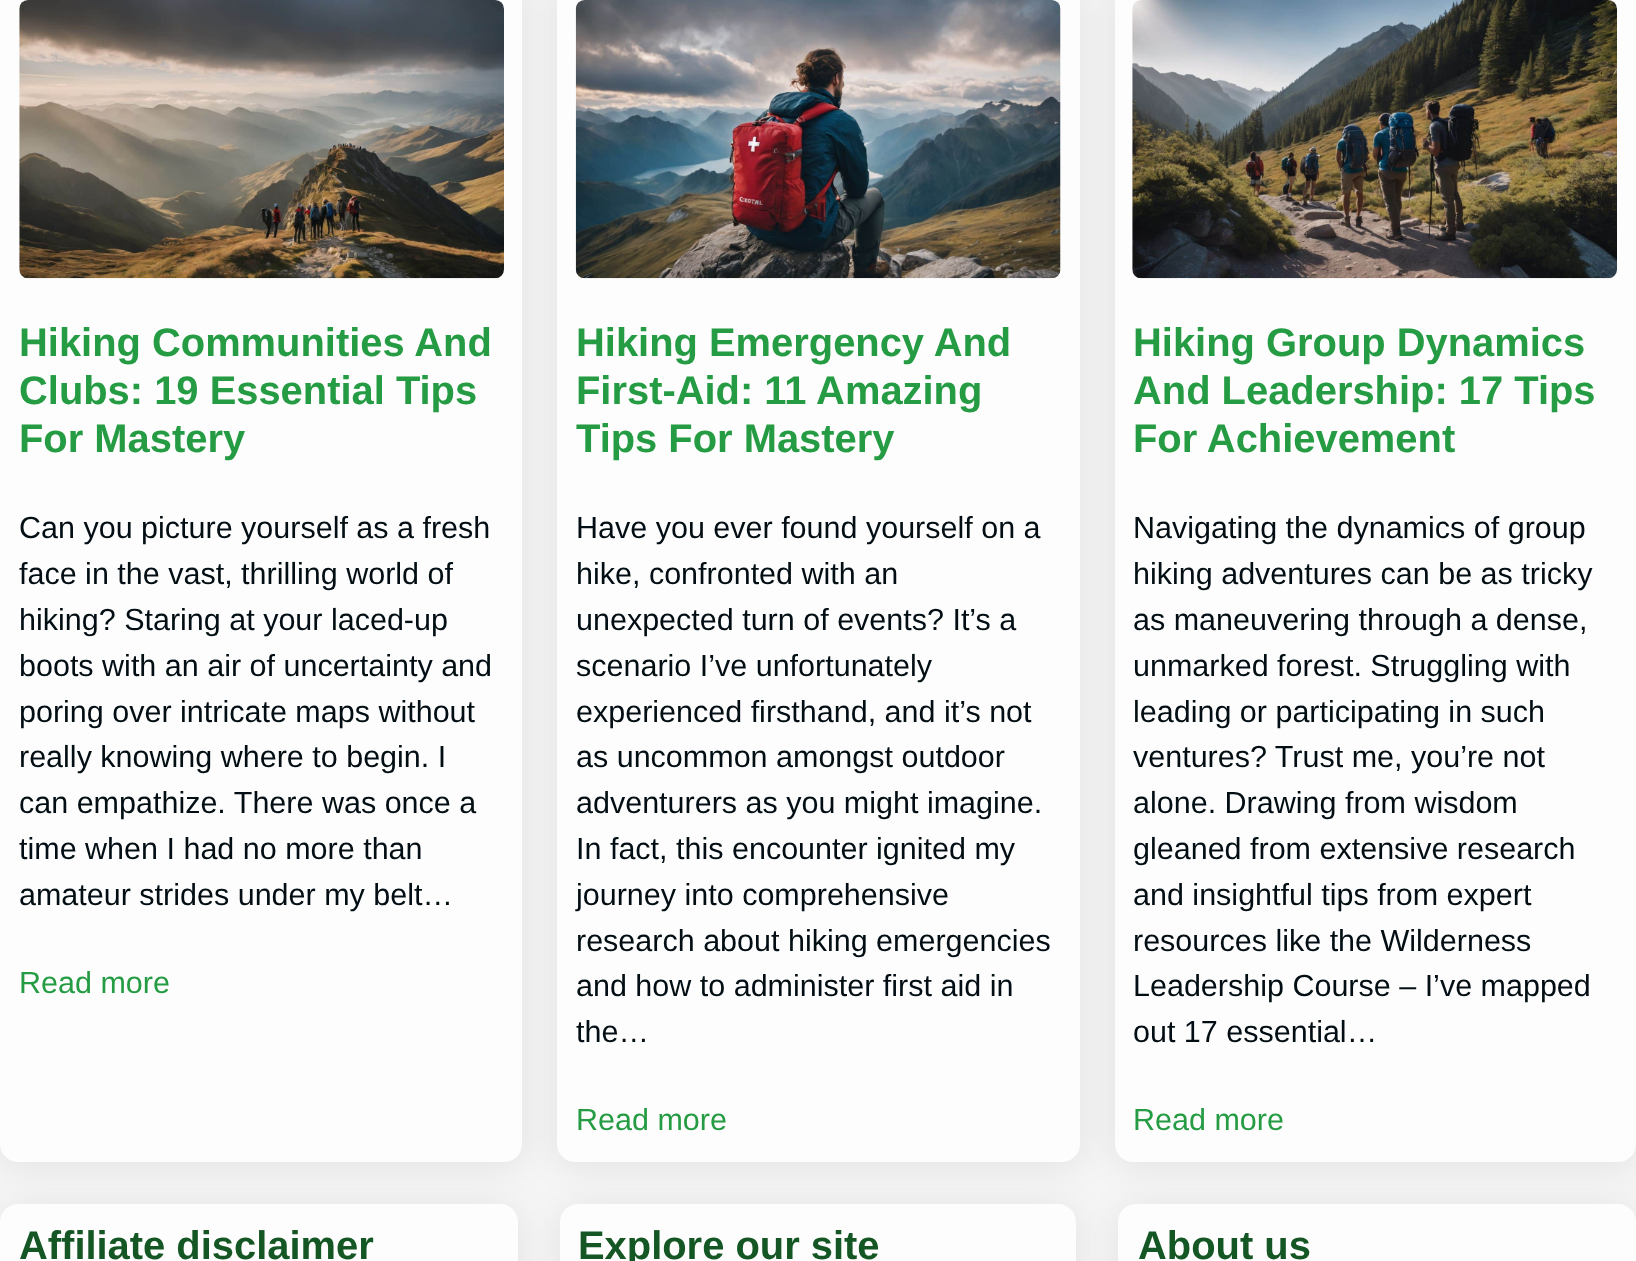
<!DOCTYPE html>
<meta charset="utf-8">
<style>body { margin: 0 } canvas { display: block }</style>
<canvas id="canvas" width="1636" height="1261"></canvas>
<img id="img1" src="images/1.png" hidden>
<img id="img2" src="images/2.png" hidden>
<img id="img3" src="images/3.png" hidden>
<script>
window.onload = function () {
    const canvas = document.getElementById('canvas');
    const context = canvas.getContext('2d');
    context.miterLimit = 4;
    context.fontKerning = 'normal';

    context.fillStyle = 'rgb(245, 245, 245)';
    context.fillRect(0, 0, 1636, 1261);
    context.fillStyle = 'rgba(0, 0, 0, 0.08)';
    context.filter = 'blur(17.5px)';
    context.beginPath();
    context.roundRect(0, -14, 522, 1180, 18);
    context.fill();
    context.filter = 'none';
    context.fillStyle = 'rgb(253, 253, 253)';
    context.beginPath();
    context.roundRect(0, -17, 522, 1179, 18);
    context.fill();
    context.drawImage(document.getElementById('img1'), 19, 0, 485, 279);
    context.fillStyle = 'rgba(0, 0, 0, 0.08)';
    context.filter = 'blur(17.5px)';
    context.beginPath();
    context.roundRect(557, -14, 523, 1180, 18);
    context.fill();
    context.filter = 'none';
    context.fillStyle = 'rgb(253, 253, 253)';
    context.beginPath();
    context.roundRect(557, -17, 523, 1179, 18);
    context.fill();
    context.drawImage(document.getElementById('img2'), 575, 0, 486, 279);
    context.fillStyle = 'rgba(0, 0, 0, 0.08)';
    context.filter = 'blur(17.5px)';
    context.beginPath();
    context.roundRect(1115, -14, 521, 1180, 18);
    context.fill();
    context.filter = 'none';
    context.fillStyle = 'rgb(253, 253, 253)';
    context.beginPath();
    context.roundRect(1115, -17, 521, 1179, 18);
    context.fill();
    context.drawImage(document.getElementById('img3'), 1132, 0, 485, 279);
    context.fillStyle = 'rgba(0, 0, 0, 0.08)';
    context.filter = 'blur(17.5px)';
    context.beginPath();
    context.roundRect(0, 1208, 518, 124, 18);
    context.fill();
    context.filter = 'none';
    context.fillStyle = 'rgb(253, 253, 253)';
    context.beginPath();
    context.roundRect(0, 1204, 518, 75, 18);
    context.fill();
    context.fillStyle = 'rgba(0, 0, 0, 0.08)';
    context.filter = 'blur(17.5px)';
    context.beginPath();
    context.roundRect(560, 1208, 516, 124, 18);
    context.fill();
    context.filter = 'none';
    context.fillStyle = 'rgb(253, 253, 253)';
    context.beginPath();
    context.roundRect(560, 1204, 516, 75, 18);
    context.fill();
    context.fillStyle = 'rgba(0, 0, 0, 0.08)';
    context.filter = 'blur(17.5px)';
    context.beginPath();
    context.roundRect(1118, 1208, 518, 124, 18);
    context.fill();
    context.filter = 'none';
    context.fillStyle = 'rgb(253, 253, 253)';
    context.beginPath();
    context.roundRect(1118, 1204, 518, 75, 18);
    context.fill();
    context.font = 'bold 39.9px Liberation Sans';
    context.fillStyle = 'rgb(37, 156, 67)';
    context.fillText('Hiking Communities And', 19, 356);
    context.fillText('Clubs: 19 Essential Tips', 19, 404);
    context.fillText('For Mastery', 19, 452);
    context.font = '30.5px Liberation Sans';
    context.fillStyle = 'rgb(2, 14, 19)';
    context.fillText('Can you picture yourself as a fresh', 19, 538);
    context.fillText('face in the vast, thrilling world of', 19, 584);
    context.fillText('hiking? Staring at your laced-up', 19, 630);
    context.fillText('boots with an air of uncertainty and', 19, 676);
    context.fillText('poring over intricate maps without', 19, 722);
    context.fillText('really knowing where to begin. I', 19, 767);
    context.fillText('can empathize. There was once a', 19, 813);
    context.fillText('time when I had no more than', 19, 859);
    context.fillText('amateur strides under my belt…', 19, 905);
    context.fillStyle = 'rgb(37, 156, 67)';
    context.fillText('Read more', 19, 993);
    context.font = 'bold 39.9px Liberation Sans';
    context.fillText('Hiking Emergency And', 576, 356);
    context.fillText('First-Aid: 11 Amazing', 576, 404);
    context.fillText('Tips For Mastery', 576, 452);
    context.font = '30.5px Liberation Sans';
    context.fillStyle = 'rgb(2, 14, 19)';
    context.fillText('Have you ever found yourself on a', 576, 538);
    context.fillText('hike, confronted with an', 576, 584);
    context.fillText('unexpected turn of events? It’s a', 576, 630);
    context.fillText('scenario I’ve unfortunately', 576, 676);
    context.fillText('experienced firsthand, and it’s not', 576, 722);
    context.fillText('as uncommon amongst outdoor', 576, 767);
    context.fillText('adventurers as you might imagine.', 576, 813);
    context.fillText('In fact, this encounter ignited my', 576, 859);
    context.fillText('journey into comprehensive', 576, 905);
    context.fillText('research about hiking emergencies', 576, 951);
    context.fillText('and how to administer first aid in', 576, 996);
    context.fillText('the…', 576, 1042);
    context.fillStyle = 'rgb(37, 156, 67)';
    context.fillText('Read more', 576, 1130);
    context.font = 'bold 39.9px Liberation Sans';
    context.fillText('Hiking Group Dynamics', 1133, 356);
    context.fillText('And Leadership: 17 Tips', 1133, 404);
    context.fillText('For Achievement', 1133, 452);
    context.font = '30.5px Liberation Sans';
    context.fillStyle = 'rgb(2, 14, 19)';
    context.fillText('Navigating the dynamics of group', 1133, 538);
    context.fillText('hiking adventures can be as tricky', 1133, 584);
    context.fillText('as maneuvering through a dense,', 1133, 630);
    context.fillText('unmarked forest. Struggling with', 1133, 676);
    context.fillText('leading or participating in such', 1133, 722);
    context.fillText('ventures? Trust me, you’re not', 1133, 767);
    context.fillText('alone. Drawing from wisdom', 1133, 813);
    context.fillText('gleaned from extensive research', 1133, 859);
    context.fillText('and insightful tips from expert', 1133, 905);
    context.fillText('resources like the Wilderness', 1133, 951);
    context.fillText('Leadership Course – I’ve mapped', 1133, 996);
    context.fillText('out 17 essential…', 1133, 1042);
    context.fillStyle = 'rgb(37, 156, 67)';
    context.fillText('Read more', 1133, 1130);
    context.font = 'bold 39.9px Liberation Sans';
    context.fillStyle = 'rgb(21, 87, 36)';
    context.fillText('Affiliate disclaimer', 19, 1259);
    context.fillText('Explore our site', 578, 1259);
    context.fillText('About us', 1138, 1259);
};
</script>
